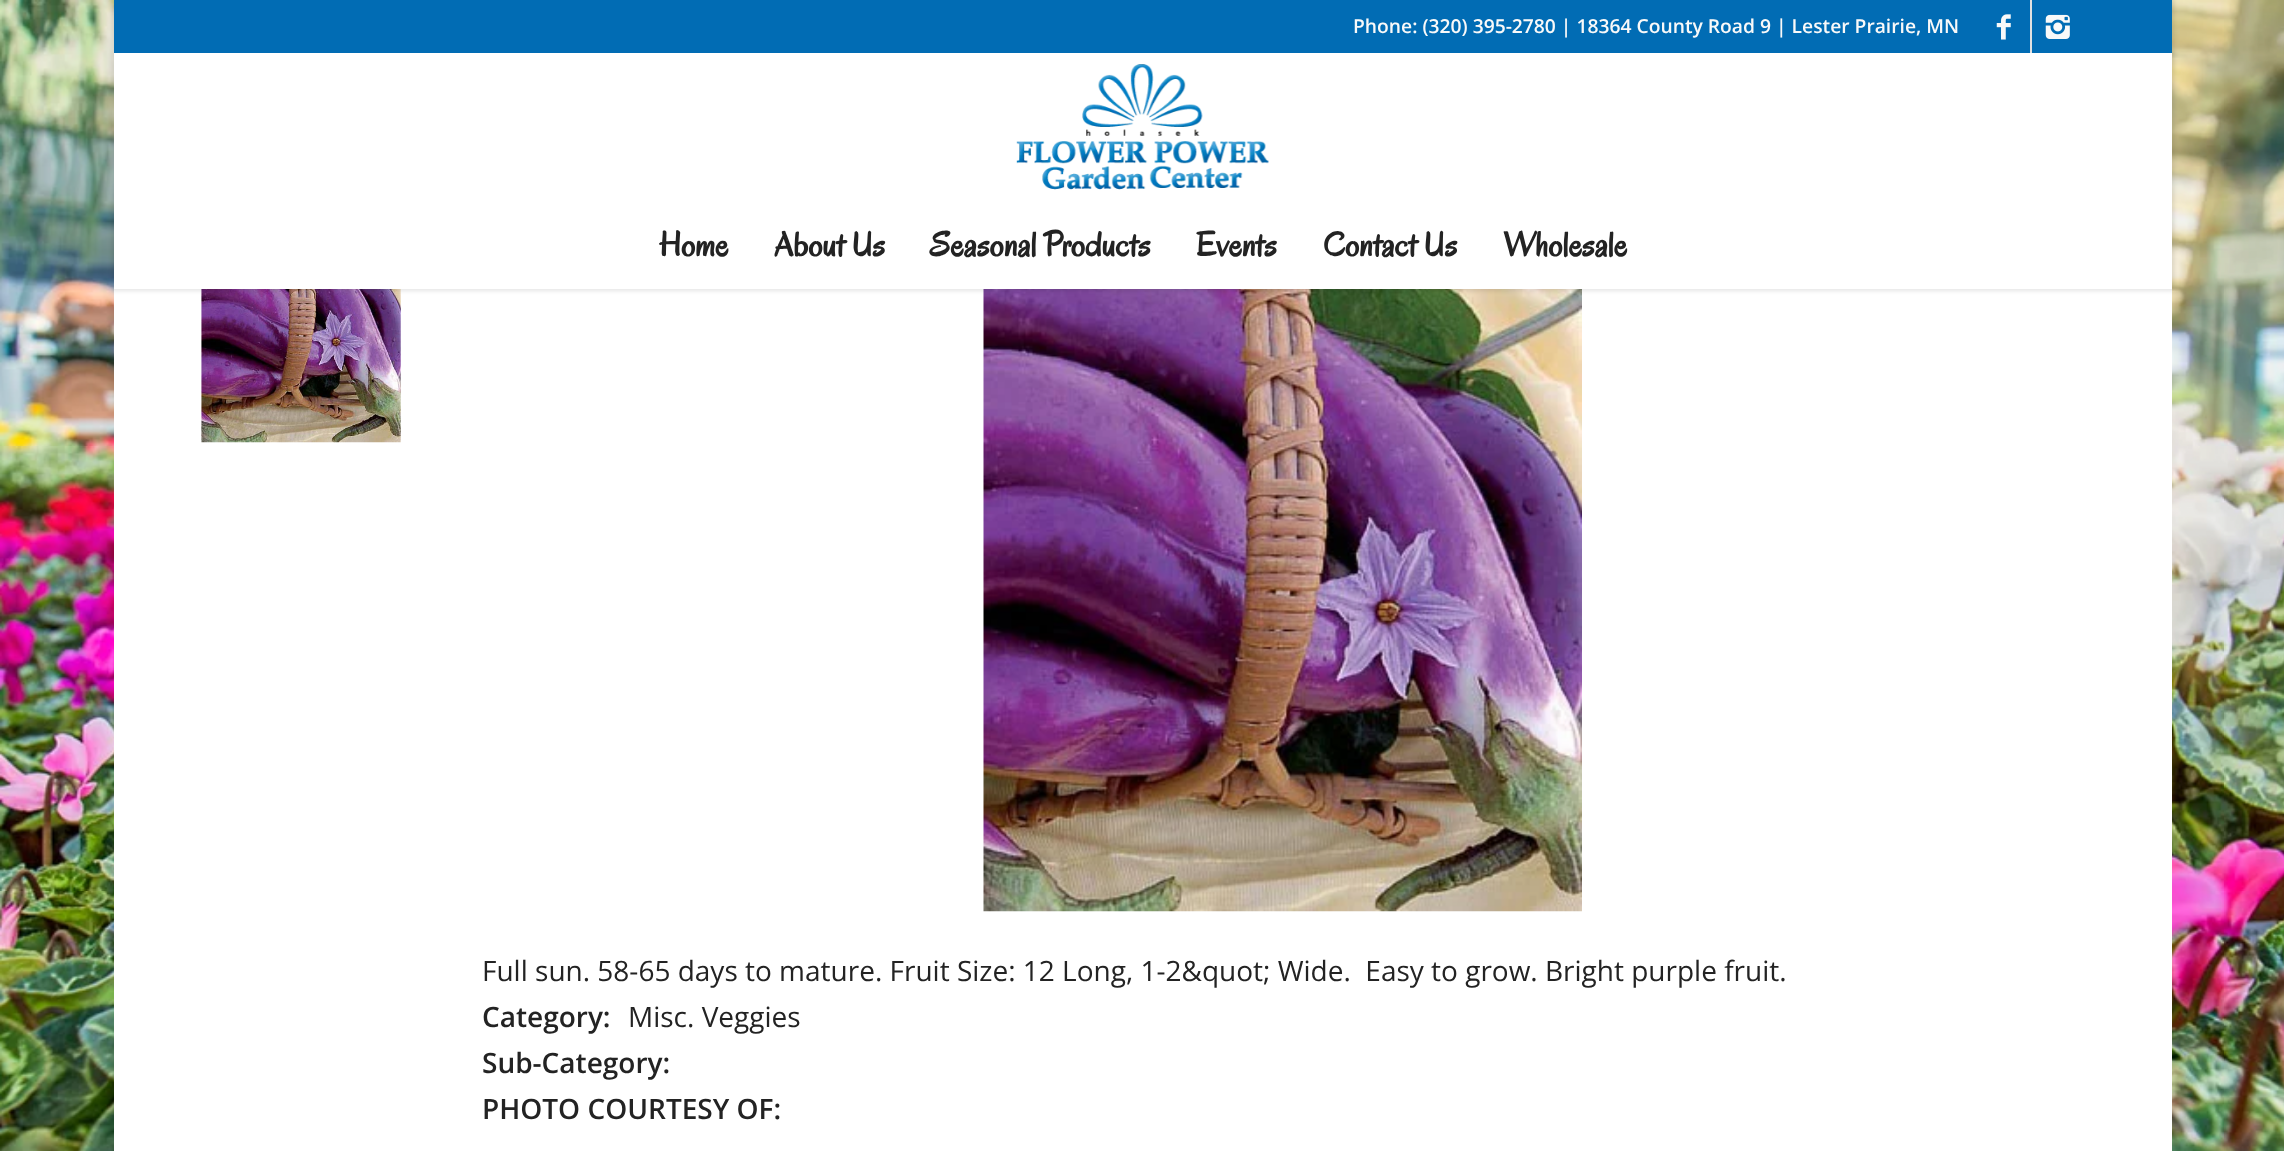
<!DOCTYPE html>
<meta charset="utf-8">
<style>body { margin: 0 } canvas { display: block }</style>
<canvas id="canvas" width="2284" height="1151"></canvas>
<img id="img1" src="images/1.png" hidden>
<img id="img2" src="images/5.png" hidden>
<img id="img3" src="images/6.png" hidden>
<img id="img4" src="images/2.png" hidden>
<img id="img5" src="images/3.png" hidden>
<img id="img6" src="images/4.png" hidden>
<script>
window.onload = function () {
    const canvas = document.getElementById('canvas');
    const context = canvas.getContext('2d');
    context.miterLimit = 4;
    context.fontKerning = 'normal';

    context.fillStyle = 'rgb(255, 255, 255)';
    context.fillRect(0, 0, 2284, 1151);
    context.drawImage(document.getElementById('img1'), 0, 0, 2284, 1151);
    context.fillRect(114, 289, 2058, 862);
    context.drawImage(document.getElementById('img2'), 201, 289, 200, 154);
    context.drawImage(document.getElementById('img3'), 983, 289, 599, 623);
    context.fillStyle = 'rgba(0, 0, 0, 0.1)';
    context.filter = 'blur(2px)';
    context.beginPath();
    context.rect(112, -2, 2062, 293);
    context.fill();
    context.filter = 'none';
    context.fillStyle = 'rgb(1, 108, 180)';
    context.fillRect(114, 0, 2058, 53);
    context.fillStyle = 'rgb(225, 225, 225)';
    context.fillRect(2030, 0, 2, 53);
    context.drawImage(document.getElementById('img4'), 1996, 14, 15, 26);
    context.drawImage(document.getElementById('img5'), 2045, 14, 25, 25);
    context.fillStyle = 'rgb(255, 255, 255)';
    context.fillRect(114, 53, 2058, 236);
    context.drawImage(document.getElementById('img6'), 1016, 64, 253, 126);
    context.font = '600 19.25px Open Sans';
    context.fillStyle = 'rgb(249, 249, 249)';
    context.fillText('Phone: (320) 395-2780 | 18364 County Road 9 | Lester Prairie, MN', 1353, 33);
    context.font = 'bold 35px Oregano';
    context.fillStyle = 'rgb(35, 35, 35)';
    context.fillText('Home', 659, 256);
    context.fillText('About Us', 774, 256);
    context.fillText('Seasonal Products', 930, 256);
    context.fillText('Events', 1196, 256);
    context.fillText('Contact Us', 1323, 256);
    context.fillText('Wholesale', 1503, 256);
    context.font = '28px Open Sans';
    context.fillText('Full sun. 58-65 days to mature. Fruit Size: 12 Long, 1-2&quot; Wide.  Easy to grow. Bright purple fruit.', 482, 981);
    context.font = '600 28px Open Sans';
    context.fillText('Category:', 482, 1027);
    context.font = '28px Open Sans';
    context.fillText('Misc. Veggies', 628, 1027);
    context.font = '600 28px Open Sans';
    context.fillText('Sub-Category:', 482, 1073);
    context.fillText('PHOTO COURTESY OF:', 482, 1119);
};
</script>
